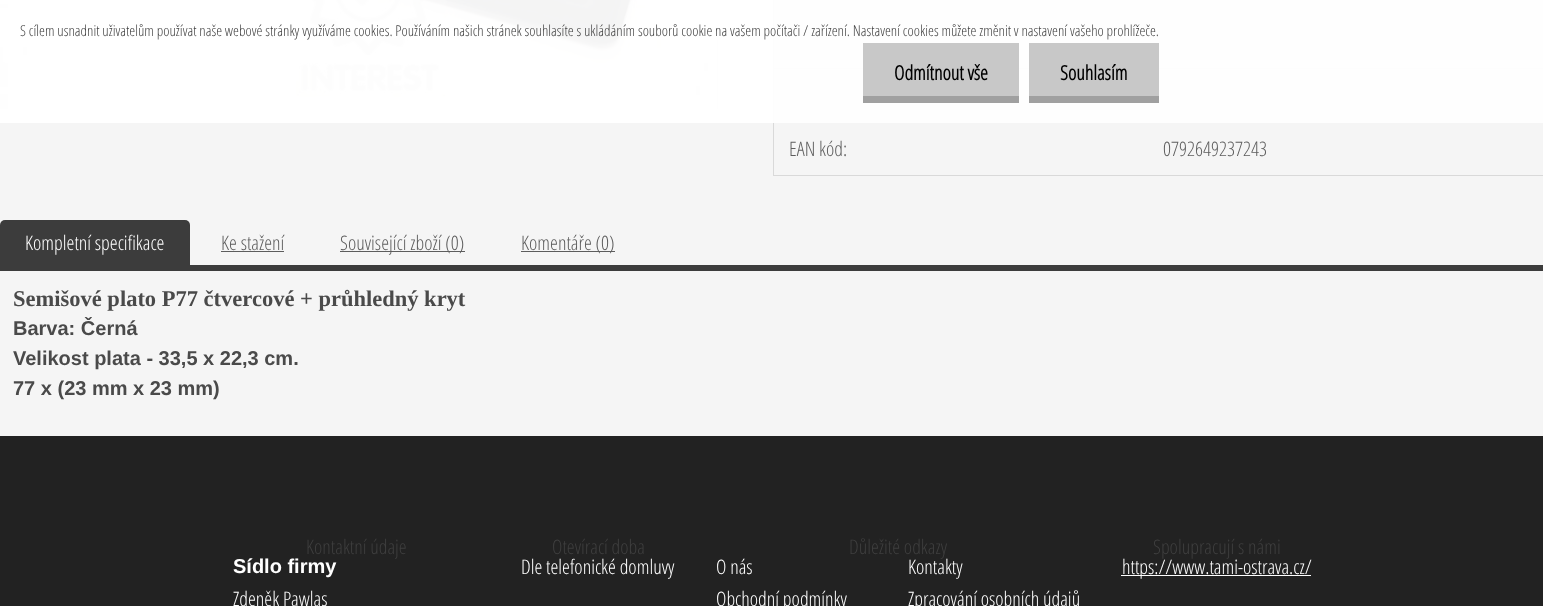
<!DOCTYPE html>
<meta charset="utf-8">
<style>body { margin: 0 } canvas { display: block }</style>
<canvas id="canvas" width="1543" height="606"></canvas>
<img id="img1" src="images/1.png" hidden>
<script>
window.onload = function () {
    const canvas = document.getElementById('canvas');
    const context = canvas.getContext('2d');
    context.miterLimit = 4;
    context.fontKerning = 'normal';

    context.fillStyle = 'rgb(245, 245, 245)';
    context.fillRect(0, 0, 1543, 606);
    context.fillStyle = 'rgb(254, 254, 254)';
    context.fillRect(774, 69, 769, 54);
    context.fillStyle = 'rgb(253, 253, 253)';
    context.fillRect(773, 68, 770, 1);
    context.fillStyle = 'rgb(254, 254, 254)';
    context.fillRect(774, 0, 769, 68);
    context.fillStyle = 'rgb(200, 200, 200)';
    context.fillRect(863, 43, 156, 53);
    context.fillStyle = 'rgb(160, 160, 160)';
    context.fillRect(863, 96, 156, 7);
    context.fillStyle = 'rgb(200, 200, 200)';
    context.fillRect(1029, 43, 130, 53);
    context.fillStyle = 'rgb(160, 160, 160)';
    context.fillRect(1029, 96, 130, 7);
    context.fillStyle = 'rgb(255, 255, 255)';
    context.fillRect(0, 0, 773, 123);
    context.drawImage(document.getElementById('img1'), 0, 0, 718, 109);
    context.fillStyle = 'rgb(253, 253, 253)';
    context.fillRect(773, 121, 1, 1);
    context.fillStyle = 'rgb(217, 217, 217)';
    context.fillRect(773, 175, 770, 1);
    context.fillRect(773, 121, 1, 55);
    context.fillStyle = 'rgb(253, 253, 253)';
    context.fillRect(773, 0, 1, 123);
    context.fillStyle = 'rgb(60, 60, 60)';
    context.fillRect(0, 265, 1543, 6);
    context.beginPath();
    context.roundRect(0, 220, 190, 45, [5, 5, 0, 0]);
    context.fill();
    context.fillStyle = 'rgb(93, 93, 93)';
    context.fillRect(221, 251, 63, 1);
    context.fillRect(340, 251, 125, 1);
    context.fillRect(521, 251, 94, 1);
    context.fillStyle = 'rgb(34, 34, 34)';
    context.fillRect(0, 436, 1543, 170);
    context.fillStyle = 'rgb(255, 255, 255)';
    context.fillRect(1121, 575, 190, 1);
    context.font = '300 15px Open Sans Condensed';
    context.fillStyle = 'rgb(63, 63, 63)';
    context.fillText('S cílem usnadnit uživatelům používat naše webové stránky využíváme cookies. Používáním našich stránek souhlasíte s ukládáním souborů cookie na vašem počítači / zařízení. Nastavení cookies můžete změnit v nastavení vašeho prohlížeče.', 20, 36);
    context.font = 'bold 20px Open Sans Condensed';
    context.fillStyle = 'rgb(0, 0, 0)';
    context.fillText('Odmítnout vše', 894, 80);
    context.fillText('Souhlasím', 1060, 80);
    context.font = '300 20px Open Sans Condensed';
    context.fillStyle = 'rgb(93, 93, 93)';
    context.fillText('EAN kód:', 789, 156);
    context.fillText('0792649237243', 1163, 156);
    context.fillStyle = 'rgb(255, 255, 255)';
    context.fillText('Kompletní specifikace', 25, 250);
    context.fillStyle = 'rgb(93, 93, 93)';
    context.fillText('Ke stažení', 221, 250);
    context.fillText('Související zboží (0)', 340, 250);
    context.fillText('Komentáře (0)', 521, 250);
    context.font = 'bold 22.5px Liberation Serif';
    context.fillStyle = 'rgb(74, 74, 74)';
    context.fillText('Semišové plato P77 čtvercové + průhledný kryt', 13, 306);
    context.font = 'bold 20px Liberation Sans';
    context.fillText('Barva: Černá', 13, 335);
    context.fillText('Velikost plata - 33,5 x 22,3 cm.', 13, 365);
    context.fillText('77 x (23 mm x 23 mm)', 13, 395);
    context.font = '300 20px Open Sans Condensed';
    context.fillStyle = 'rgb(63, 63, 63)';
    context.fillText('Kontaktní údaje', 306, 554);
    context.font = 'bold 20px Liberation Sans';
    context.fillStyle = 'rgb(255, 255, 255)';
    context.fillText('Sídlo firmy', 233, 573);
    context.font = '300 20px Open Sans Condensed';
    context.fillText('Zdeněk Pawlas', 233, 606);
    context.fillStyle = 'rgb(63, 63, 63)';
    context.fillText('Otevírací doba', 552, 554);
    context.fillStyle = 'rgb(255, 255, 255)';
    context.fillText('Dle telefonické domluvy', 521, 574);
    context.fillStyle = 'rgb(63, 63, 63)';
    context.fillText('Důležité odkazy', 849, 554);
    context.fillStyle = 'rgb(255, 255, 255)';
    context.fillText('O nás', 716, 574);
    context.fillText('Kontakty', 908, 574);
    context.fillText('Obchodní podmínky', 716, 606);
    context.fillText('Zpracování osobních údajů', 908, 606);
    context.fillStyle = 'rgb(63, 63, 63)';
    context.fillText('Spolupracují s námi', 1153, 554);
    context.fillStyle = 'rgb(255, 255, 255)';
    context.fillText('https://www.tami-ostrava.cz/', 1122, 574);
};
</script>
